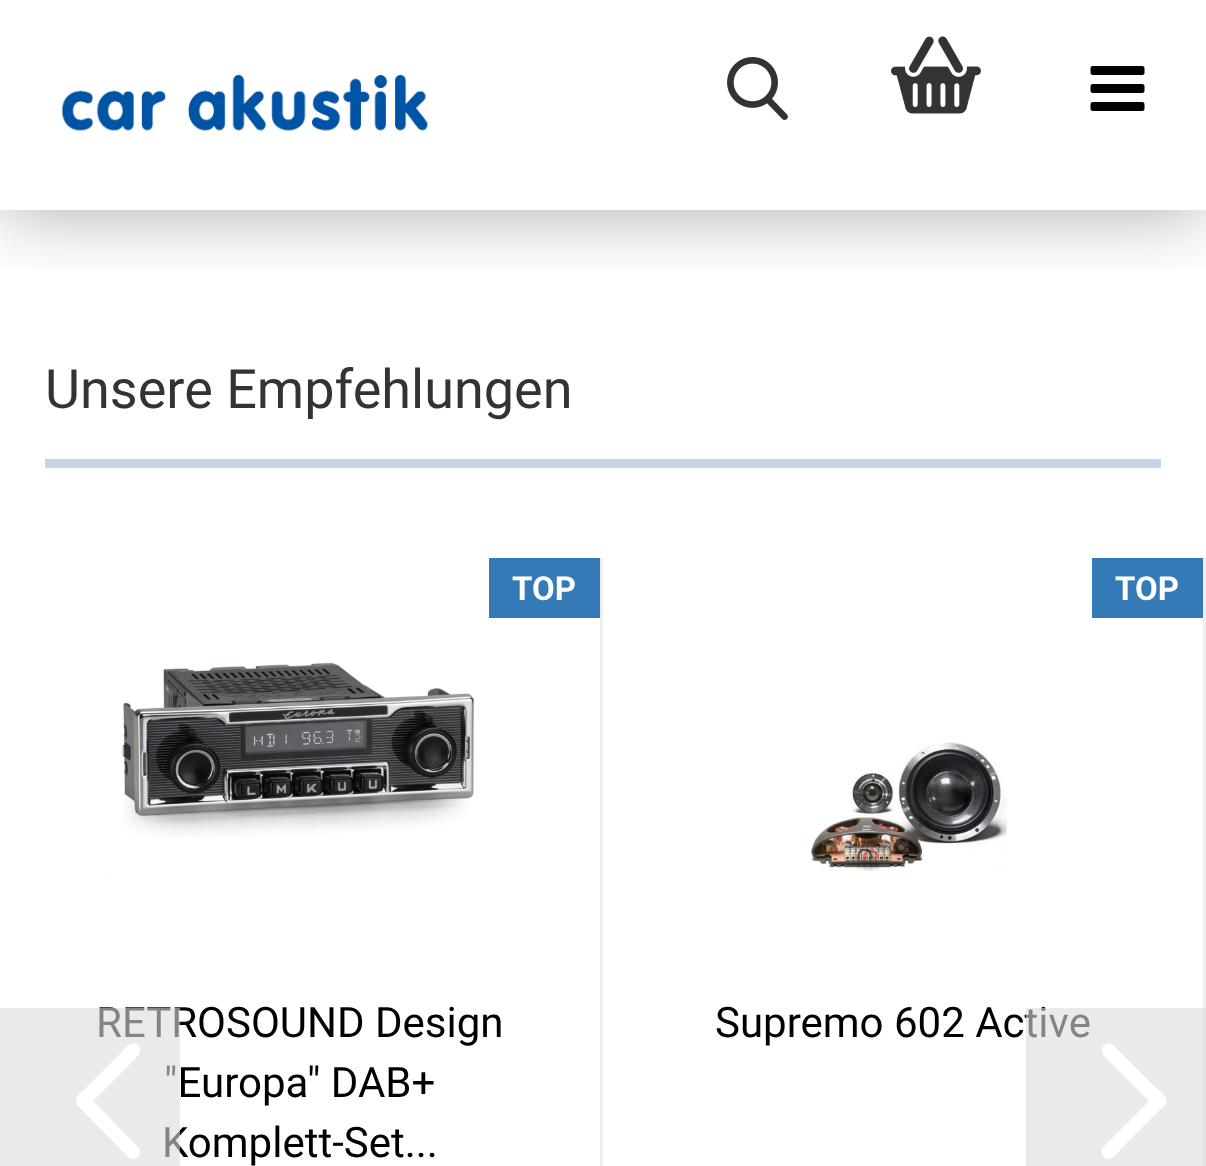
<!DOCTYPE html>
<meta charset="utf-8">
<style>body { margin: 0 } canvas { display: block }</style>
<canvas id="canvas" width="1206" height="1166"></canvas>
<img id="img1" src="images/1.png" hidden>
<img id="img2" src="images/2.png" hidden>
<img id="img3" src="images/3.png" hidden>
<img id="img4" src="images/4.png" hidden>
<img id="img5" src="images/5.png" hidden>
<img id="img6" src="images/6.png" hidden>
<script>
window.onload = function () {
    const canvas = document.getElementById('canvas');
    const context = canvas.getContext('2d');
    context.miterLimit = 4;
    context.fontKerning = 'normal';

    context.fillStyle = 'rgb(255, 255, 255)';
    context.fillRect(0, 0, 1206, 1166);
    context.save();
    context.beginPath();
    context.rect(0, 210, 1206, 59);
    context.clip();
    context.fillStyle = 'rgba(0, 0, 0, 0.35)';
    context.filter = 'blur(37.5px)';
    context.beginPath();
    context.rect(0, 0, 1206, 210);
    context.fill();
    context.filter = 'none';
    context.restore();
    context.drawImage(document.getElementById('img1'), 61, 74, 367, 57);
    context.drawImage(document.getElementById('img2'), 727, 57, 61, 63);
    context.drawImage(document.getElementById('img3'), 891, 36, 90, 78);
    context.drawImage(document.getElementById('img4'), 1090, 66, 55, 45);
    context.fillStyle = 'rgb(197, 213, 231)';
    context.fillRect(45, 459, 1116, 9);
    context.fillStyle = 'rgb(238, 238, 238)';
    context.fillRect(600, 558, 3, 608);
    context.fillStyle = 'rgb(51, 122, 183)';
    context.fillRect(489, 558, 111, 60);
    context.drawImage(document.getElementById('img5'), 105, 662, 370, 253);
    context.fillStyle = 'rgb(238, 238, 238)';
    context.fillRect(1203, 558, 3, 608);
    context.fillStyle = 'rgb(51, 122, 183)';
    context.fillRect(1092, 558, 111, 60);
    context.drawImage(document.getElementById('img6'), 810, 742, 197, 129);
    context.font = '54px Roboto';
    context.fillStyle = 'rgb(51, 51, 51)';
    context.fillText('Unsere Empfehlungen', 45, 408);
    context.font = 'bold 33px Roboto';
    context.fillStyle = 'rgb(255, 255, 255)';
    context.fillText('TOP', 512, 600);
    context.font = '42px Roboto';
    context.fillStyle = 'rgb(0, 0, 0)';
    context.fillText('RETROSOUND Design', 96, 1037);
    context.fillText('"Europa" DAB+', 164, 1097);
    context.fillText('Komplett-Set...', 162, 1157);
    context.fillStyle = 'rgba(220, 220, 220, 0.6)';
    context.fillRect(0, 1008, 180, 158);
    context.fillStyle = 'rgb(255, 255, 255)';
    context.beginPath();
    context.moveTo(76, 1101);
    context.bezierCurveTo(76, 1095, 84, 1090, 86, 1088);
    context.lineTo(120, 1054);
    context.bezierCurveTo(123, 1051, 129, 1041, 136, 1044);
    context.bezierCurveTo(139, 1045, 141, 1048, 140, 1052);
    context.bezierCurveTo(139, 1056, 132, 1061, 131, 1063);
    context.lineTo(93, 1101);
    context.lineTo(138, 1147);
    context.bezierCurveTo(140, 1148, 140, 1150, 140, 1152);
    context.bezierCurveTo(140, 1154, 140, 1155, 138, 1157);
    context.bezierCurveTo(137, 1158, 135, 1159, 133, 1159);
    context.bezierCurveTo(131, 1159, 130, 1158, 128, 1157);
    context.lineTo(78, 1106);
    context.bezierCurveTo(76, 1104, 76, 1103, 76, 1101);
    context.closePath();
    context.fill();
    context.font = 'bold 33px Roboto';
    context.fillText('TOP', 1115, 600);
    context.font = '42px Roboto';
    context.fillStyle = 'rgb(0, 0, 0)';
    context.fillText('Supremo 602 Active', 715, 1037);
    context.fillStyle = 'rgba(220, 220, 220, 0.6)';
    context.fillRect(1026, 1008, 180, 158);
    context.fillStyle = 'rgb(255, 255, 255)';
    context.beginPath();
    context.moveTo(1109, 1159);
    context.bezierCurveTo(1107, 1159, 1105, 1158, 1103, 1156);
    context.bezierCurveTo(1098, 1149, 1108, 1143, 1111, 1139);
    context.lineTo(1149, 1101);
    context.lineTo(1111, 1063);
    context.bezierCurveTo(1110, 1061, 1103, 1056, 1102, 1052);
    context.bezierCurveTo(1100, 1047, 1107, 1041, 1112, 1044);
    context.lineTo(1156, 1088);
    context.bezierCurveTo(1160, 1091, 1170, 1098, 1165, 1105);
    context.lineTo(1122, 1148);
    context.bezierCurveTo(1119, 1151, 1114, 1159, 1109, 1159);
    context.closePath();
    context.fill();
};
</script>
